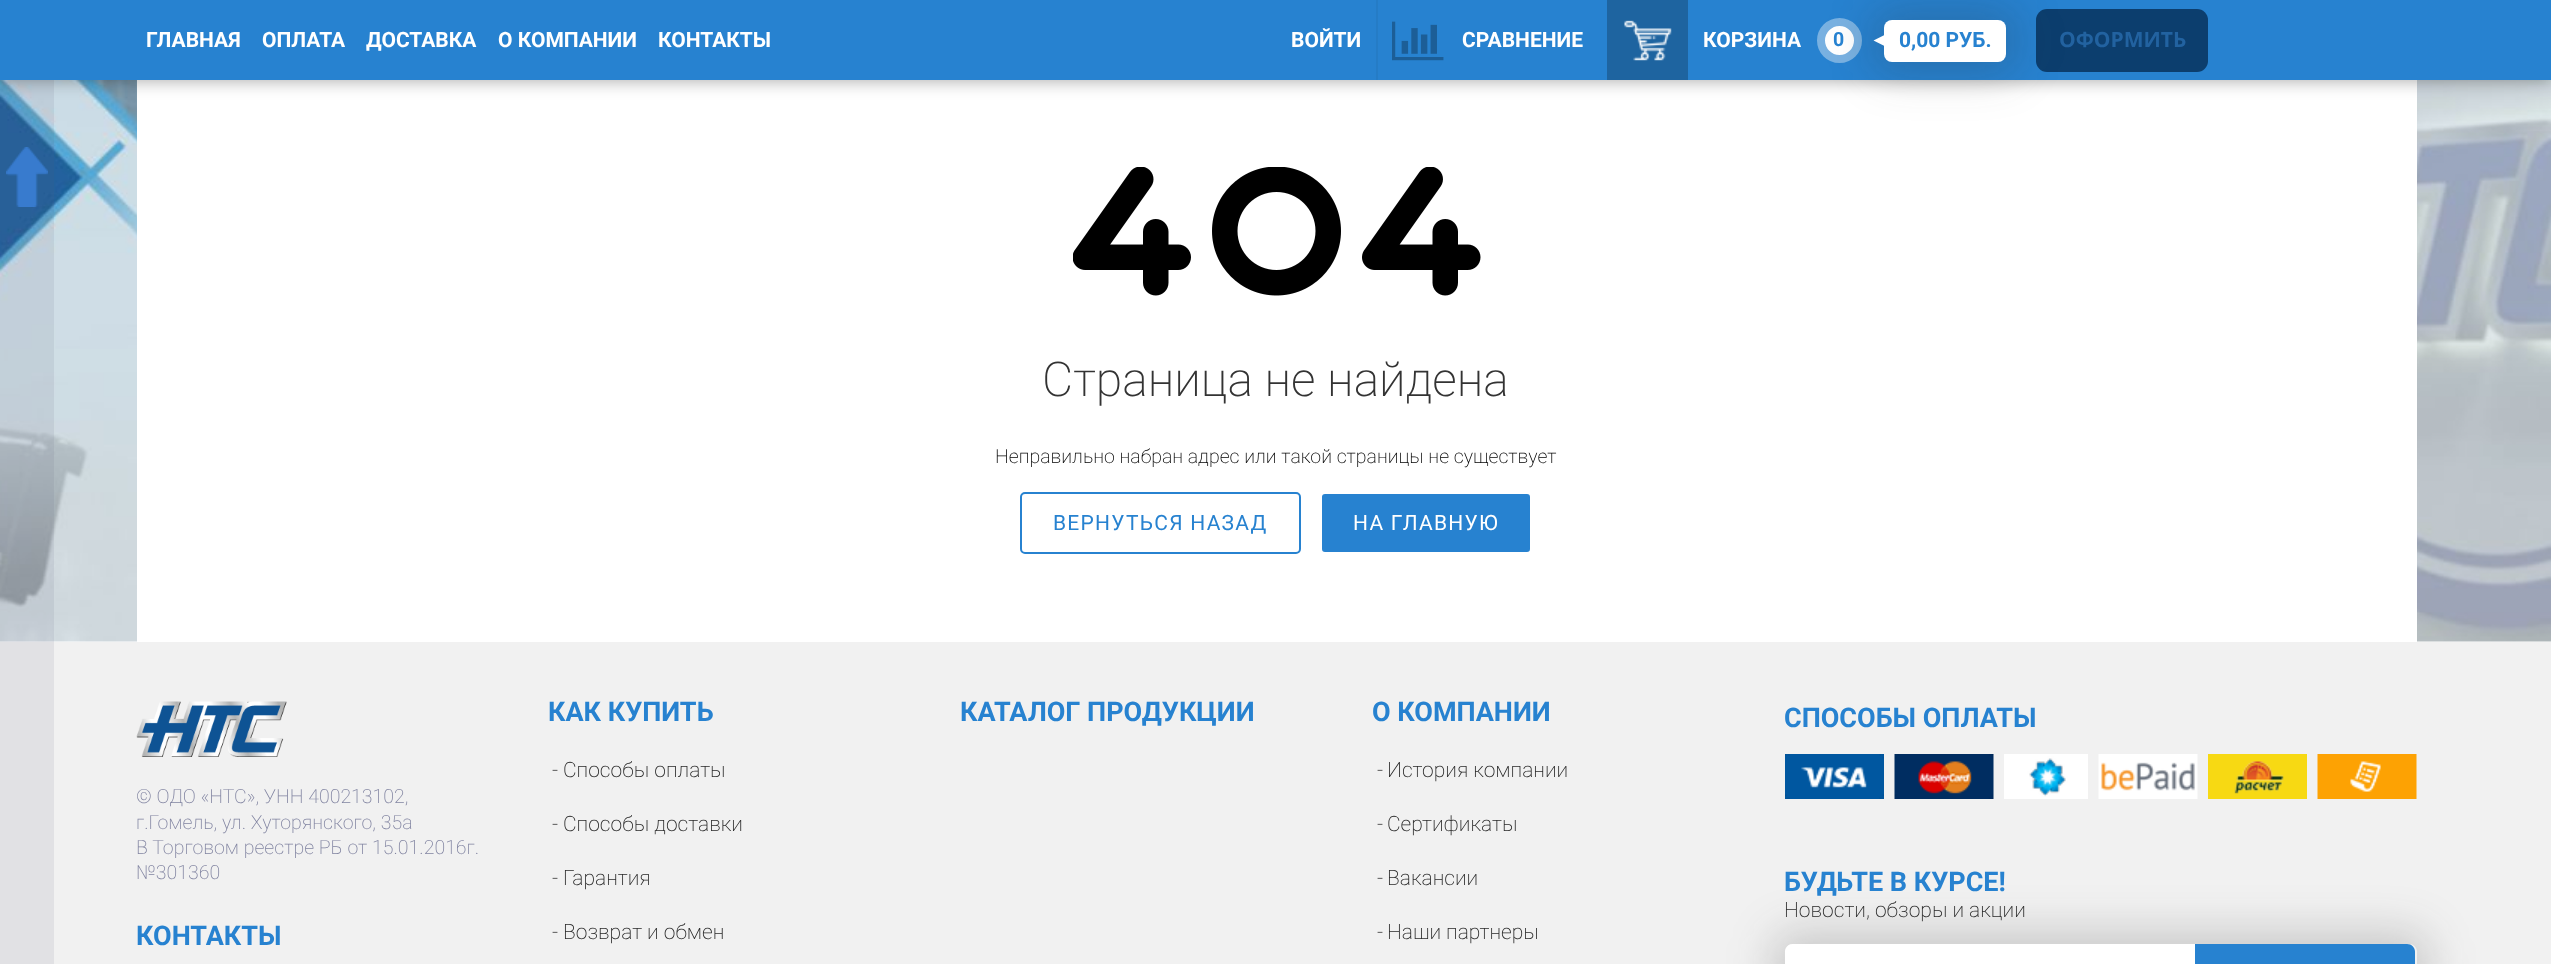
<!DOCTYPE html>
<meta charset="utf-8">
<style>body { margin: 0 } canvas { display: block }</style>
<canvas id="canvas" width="2551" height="964"></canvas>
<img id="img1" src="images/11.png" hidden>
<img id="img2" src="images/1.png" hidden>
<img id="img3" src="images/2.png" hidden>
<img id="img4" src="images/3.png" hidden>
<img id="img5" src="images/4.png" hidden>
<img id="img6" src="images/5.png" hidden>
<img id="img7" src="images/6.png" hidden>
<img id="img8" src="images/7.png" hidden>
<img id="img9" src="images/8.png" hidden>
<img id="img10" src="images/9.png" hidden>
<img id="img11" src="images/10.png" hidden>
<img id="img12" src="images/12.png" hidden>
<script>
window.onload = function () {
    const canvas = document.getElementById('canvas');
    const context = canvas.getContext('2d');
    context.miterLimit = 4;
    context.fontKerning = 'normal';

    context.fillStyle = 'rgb(255, 255, 255)';
    context.fillRect(0, 0, 2551, 964);
    context.fillStyle = 'rgb(241, 241, 241)';
    context.fillRect(0, 642, 2551, 322);
    context.drawImage(document.getElementById('img1'), 0, 80, 2551, 562);
    context.fillStyle = 'rgba(87, 91, 113, 0.1)';
    context.fillRect(0, 80, 54, 884);
    context.drawImage(document.getElementById('img2'), 6, 147, 42, 60);
    context.fillStyle = 'rgb(255, 255, 255)';
    context.fillRect(137, 80, 2280, 562);
    context.fillStyle = 'rgba(0, 0, 0, 0.36)';
    context.filter = 'blur(9px)';
    context.beginPath();
    context.rect(0, 0, 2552, 80);
    context.fill();
    context.filter = 'none';
    context.fillStyle = 'rgb(39, 130, 208)';
    context.fillRect(0, 0, 2551, 80);
    context.fillStyle = 'rgb(37, 124, 198)';
    context.fillRect(1376, 0, 2, 80);
    context.drawImage(document.getElementById('img3'), 1392, 21, 52, 40);
    context.fillStyle = 'rgb(30, 100, 160)';
    context.fillRect(1607, 0, 81, 80);
    context.drawImage(document.getElementById('img4'), 1624, 20, 48, 41);
    context.fillStyle = 'rgb(255, 255, 255)';
    context.beginPath();
    context.arc(1839.5, 40.5, 18.5, 0, 2 * Math.PI);
    context.fill();
    context.strokeStyle = 'rgb(121, 177, 225)';
    context.lineWidth = 8;
    context.stroke();
    context.fillStyle = 'rgb(12, 62, 110)';
    context.beginPath();
    context.roundRect(2036, 9, 172, 63, 11);
    context.fill();
    context.fillStyle = 'rgba(40, 40, 40, 0.2)';
    context.filter = 'blur(22.5px)';
    context.beginPath();
    context.roundRect(1872, 8, 146, 66, 20);
    context.fill();
    context.filter = 'none';
    context.fillStyle = 'rgb(255, 255, 255)';
    context.beginPath();
    context.roundRect(1884, 20, 122, 42, 8);
    context.fill();
    context.beginPath();
    context.moveTo(1888.5, 33);
    context.lineTo(1888.5, 48);
    context.lineTo(1873.5, 40.5);
    context.closePath();
    context.fill();
    context.drawImage(document.getElementById('img5'), 136, 701, 151, 56);
    context.drawImage(document.getElementById('img6'), 1785, 754, 99, 45);
    context.drawImage(document.getElementById('img7'), 1894, 754, 100, 45);
    context.drawImage(document.getElementById('img8'), 2004, 754, 84, 45);
    context.drawImage(document.getElementById('img9'), 2098, 754, 100, 45);
    context.drawImage(document.getElementById('img10'), 2208, 754, 99, 45);
    context.drawImage(document.getElementById('img11'), 2317, 754, 100, 45);
    context.save();
    context.beginPath();
    context.moveTo(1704, 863);
    context.lineTo(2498, 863);
    context.lineTo(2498, 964);
    context.lineTo(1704, 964);
    context.closePath();
    context.moveTo(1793, 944);
    context.lineTo(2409, 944);
    context.bezierCurveTo(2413.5, 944, 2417, 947.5, 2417, 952);
    context.lineTo(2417, 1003);
    context.bezierCurveTo(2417, 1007.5, 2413.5, 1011, 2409, 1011);
    context.lineTo(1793, 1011);
    context.bezierCurveTo(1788.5, 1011, 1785, 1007.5, 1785, 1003);
    context.lineTo(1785, 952);
    context.bezierCurveTo(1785, 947.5, 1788.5, 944, 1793, 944);
    context.closePath();
    context.clip('evenodd');
    context.fillStyle = 'rgba(40, 40, 40, 0.2)';
    context.filter = 'blur(22.5px)';
    context.beginPath();
    context.roundRect(1773, 932, 656, 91, 20);
    context.fill();
    context.filter = 'none';
    context.restore();
    context.beginPath();
    context.moveTo(1793, 944);
    context.lineTo(2195, 944);
    context.lineTo(2195, 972);
    context.lineTo(1793, 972);
    context.bezierCurveTo(1788.5, 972, 1785, 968.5, 1785, 964);
    context.lineTo(1785, 952);
    context.bezierCurveTo(1785, 947.5, 1788.5, 944, 1793, 944);
    context.closePath();
    context.fill();
    context.fillStyle = 'rgb(39, 130, 208)';
    context.beginPath();
    context.moveTo(2195, 944);
    context.lineTo(2407, 944);
    context.bezierCurveTo(2411.5, 944, 2415, 947.5, 2415, 952);
    context.lineTo(2415, 964);
    context.bezierCurveTo(2415, 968.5, 2411.5, 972, 2407, 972);
    context.lineTo(2195, 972);
    context.closePath();
    context.fill();
    context.drawImage(document.getElementById('img12'), 1073, 167, 408, 129);
    context.beginPath();
    context.roundRect(1021, 493, 279, 60, 4);
    context.strokeStyle = 'rgb(39, 130, 208)';
    context.lineWidth = 2;
    context.stroke();
    context.beginPath();
    context.roundRect(1321, 493, 210, 60, 4);
    context.fill();
    context.strokeStyle = 'rgb(255, 255, 255)';
    context.stroke();
    context.font = 'bold 21px Roboto';
    context.fillStyle = 'rgb(255, 255, 255)';
    context.fillText('ГЛАВНАЯ', 146, 47);
    context.fillText('ОПЛАТА', 262, 47);
    context.fillText('ДОСТАВКА', 366, 47);
    context.fillText('О КОМПАНИИ', 498, 47);
    context.fillText('КОНТАКТЫ', 658, 47);
    context.fillText('ВОЙТИ', 1291, 47);
    context.fillText('СРАВНЕНИЕ', 1462, 47);
    context.fillText('КОРЗИНА', 1703, 47);
    context.font = 'bold 19.5px Roboto';
    context.fillStyle = 'rgb(39, 130, 208)';
    context.fillText('0', 1833, 46);
    context.font = 'bold 21px Roboto';
    context.fillText('0,00 РУБ.', 1899, 47);
    context.font = 'bold 21px Open Sans';
    context.fillStyle = 'rgb(34, 98, 160)';
    context.fillText('ОФОРМИТЬ', 2059, 47);
    context.font = '200 19.5px Roboto';
    context.fillStyle = 'rgb(129, 132, 161)';
    context.fillText('© ОДО «НТС», УНН 400213102,', 136, 803);
    context.fillText('г.Гомель, ул. Хуторянского, 35а', 136, 829);
    context.fillText('В Торговом реестре РБ от 15.01.2016г.', 136, 854);
    context.fillText('№301360', 136, 879);
    context.font = 'bold 27px Roboto';
    context.fillStyle = 'rgb(39, 130, 208)';
    context.fillText('КОНТАКТЫ', 136, 945);
    context.fillText('КАК КУПИТЬ', 548, 721);
    context.font = '200 21px Roboto';
    context.fillStyle = 'rgb(40, 40, 40)';
    context.fillText('-', 552, 777);
    context.fillText('Способы оплаты', 563, 777);
    context.fillText('-', 552, 831);
    context.fillText('Способы доставки', 563, 831);
    context.fillText('-', 552, 885);
    context.fillText('Гарантия', 563, 885);
    context.fillText('-', 552, 939);
    context.fillText('Возврат и обмен', 563, 939);
    context.font = 'bold 27px Roboto';
    context.fillStyle = 'rgb(39, 130, 208)';
    context.fillText('КАТАЛОГ ПРОДУКЦИИ', 960, 721);
    context.fillText('О КОМПАНИИ', 1372, 721);
    context.font = '200 21px Roboto';
    context.fillStyle = 'rgb(40, 40, 40)';
    context.fillText('-', 1377, 777);
    context.fillText('История компании', 1387, 777);
    context.fillText('-', 1377, 831);
    context.fillText('Сертификаты', 1387, 831);
    context.fillText('-', 1377, 885);
    context.fillText('Вакансии', 1387, 885);
    context.fillText('-', 1377, 939);
    context.fillText('Наши партнеры', 1387, 939);
    context.font = 'bold 27px Roboto';
    context.fillStyle = 'rgb(39, 130, 208)';
    context.fillText('СПОСОБЫ ОПЛАТЫ', 1784, 727);
    context.fillText('БУДЬТЕ В КУРСЕ!', 1784, 891);
    context.font = '200 21px Roboto';
    context.fillStyle = 'rgb(40, 40, 40)';
    context.fillText('Новости, обзоры и акции', 1784, 917);
    context.font = '200 48px Roboto';
    context.fillStyle = 'rgb(51, 51, 51)';
    context.fillText('Страница не найдена', 1042, 396);
    context.font = '200 19.5px Roboto';
    context.fillStyle = 'rgb(0, 0, 0)';
    context.fillText('Неправильно набран адрес или такой страницы не существует', 995, 463);
    context.letterSpacing = '1.25px';
    context.font = '21px Roboto';
    context.fillStyle = 'rgb(39, 130, 208)';
    context.fillText('ВЕРНУТЬСЯ НАЗАД', 1053, 530);
    context.fillStyle = 'rgb(255, 255, 255)';
    context.fillText('НА ГЛАВНУЮ', 1353, 530);
};
</script>
